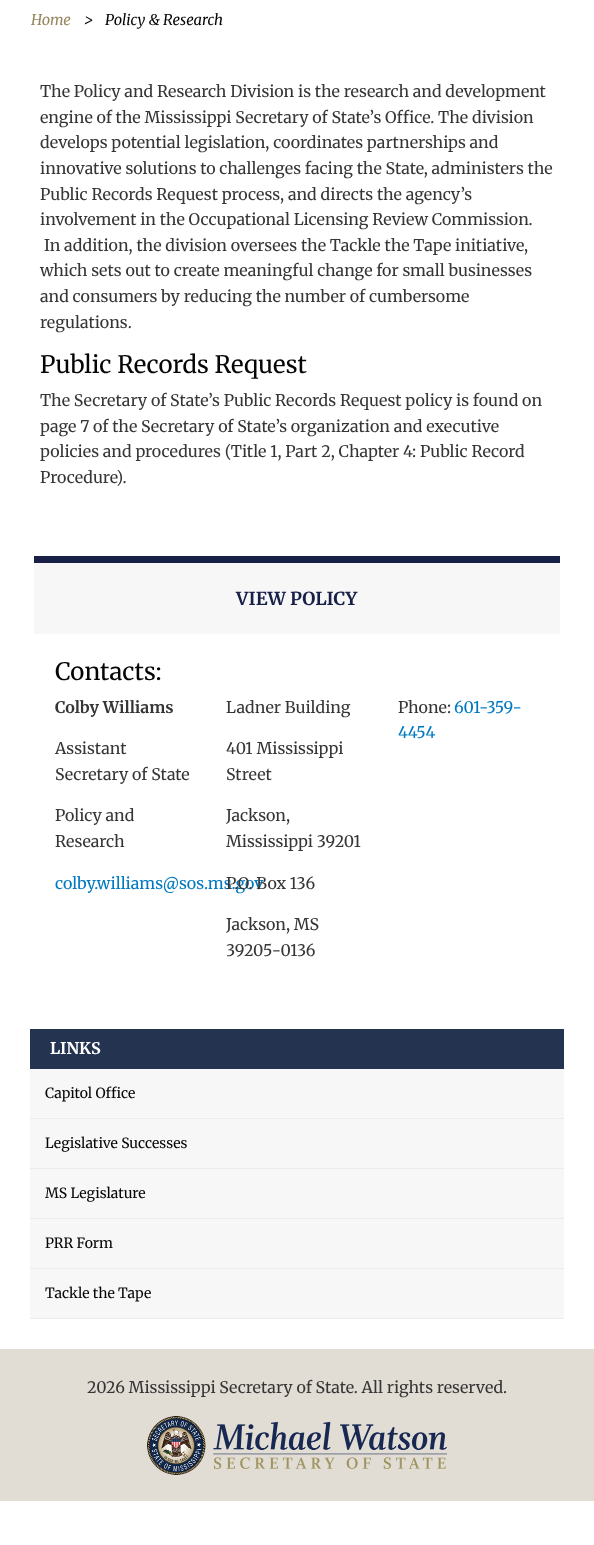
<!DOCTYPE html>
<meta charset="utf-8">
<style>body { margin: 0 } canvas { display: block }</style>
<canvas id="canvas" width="594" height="1545"></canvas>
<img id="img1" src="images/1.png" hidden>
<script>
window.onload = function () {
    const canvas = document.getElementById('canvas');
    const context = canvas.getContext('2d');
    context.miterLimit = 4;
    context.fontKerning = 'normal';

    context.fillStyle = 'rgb(255, 255, 255)';
    context.fillRect(0, 0, 594, 1545);
    context.fillStyle = 'rgb(247, 247, 247)';
    context.fillRect(34, 563, 526, 71);
    context.fillStyle = 'rgb(24, 32, 72)';
    context.fillRect(34, 556, 526, 7);
    context.fillStyle = 'rgb(36, 51, 80)';
    context.fillRect(30, 1029, 534, 40);
    context.fillStyle = 'rgb(247, 247, 247)';
    context.fillRect(30, 1069, 534, 49);
    context.fillStyle = 'rgb(235, 235, 235)';
    context.fillRect(30, 1118, 534, 1);
    context.fillStyle = 'rgb(247, 247, 247)';
    context.fillRect(30, 1119, 534, 49);
    context.fillStyle = 'rgb(235, 235, 235)';
    context.fillRect(30, 1168, 534, 1);
    context.fillStyle = 'rgb(247, 247, 247)';
    context.fillRect(30, 1169, 534, 49);
    context.fillStyle = 'rgb(235, 235, 235)';
    context.fillRect(30, 1218, 534, 1);
    context.fillStyle = 'rgb(247, 247, 247)';
    context.fillRect(30, 1219, 534, 49);
    context.fillStyle = 'rgb(235, 235, 235)';
    context.fillRect(30, 1268, 534, 1);
    context.fillStyle = 'rgb(247, 247, 247)';
    context.fillRect(30, 1269, 534, 49);
    context.fillStyle = 'rgb(235, 235, 235)';
    context.fillRect(30, 1318, 534, 1);
    context.fillStyle = 'rgb(225, 221, 213)';
    context.fillRect(0, 1349, 594, 152);
    context.drawImage(document.getElementById('img1'), 147, 1416, 300, 59);
    context.font = 'italic 14.75px Merriweather';
    context.fillStyle = 'rgb(151, 133, 94)';
    context.fillText('Home', 31, 25);
    context.fillStyle = 'rgb(5, 5, 5)';
    context.fillText('>', 84, 25);
    context.fillText('Policy & Research', 105, 25);
    context.font = '16px Merriweather';
    context.fillStyle = 'rgb(54, 54, 54)';
    context.fillText('The Policy and Research Division is the research and development', 40, 97);
    context.fillText('engine of the Mississippi Secretary of State’s Office. The division', 40, 123);
    context.fillText('develops potential legislation, coordinates partnerships and', 40, 148);
    context.fillText('innovative solutions to challenges facing the State, administers the', 40, 174);
    context.fillText('Public Records Request process, and directs the agency’s', 40, 200);
    context.fillText('involvement in the Occupational Licensing Review Commission.', 40, 225);
    context.fillText('In addition, the division oversees the Tackle the Tape initiative,', 44, 251);
    context.fillText('which sets out to create meaningful change for small businesses', 40, 276);
    context.fillText('and consumers by reducing the number of cumbersome', 40, 302);
    context.fillText('regulations.', 40, 328);
    context.font = '24px Merriweather';
    context.fillStyle = 'rgb(5, 5, 5)';
    context.fillText('Public Records Request', 40, 373);
    context.font = '16px Merriweather';
    context.fillStyle = 'rgb(54, 54, 54)';
    context.fillText('The Secretary of State’s Public Records Request policy is found on', 40, 406);
    context.fillText('page 7 of the Secretary of State’s organization and executive', 40, 432);
    context.fillText('policies and procedures (Title 1, Part 2, Chapter 4: Public Record', 40, 457);
    context.fillText('Procedure).', 40, 483);
    context.font = 'bold 18px Merriweather';
    context.fillStyle = 'rgb(24, 32, 72)';
    context.fillText('VIEW POLICY', 236, 605);
    context.font = '24px Merriweather';
    context.fillStyle = 'rgb(5, 5, 5)';
    context.fillText('Contacts:', 55, 680);
    context.font = 'bold 16px Merriweather';
    context.fillStyle = 'rgb(54, 54, 54)';
    context.fillText('Colby Williams', 55, 713);
    context.font = '16px Merriweather';
    context.fillText('Assistant', 55, 754);
    context.fillText('Secretary of State', 55, 780);
    context.fillText('Policy and', 55, 821);
    context.fillText('Research', 55, 847);
    context.fillStyle = 'rgb(0, 121, 192)';
    context.fillText('colby.williams@sos.ms.gov', 55, 889);
    context.fillStyle = 'rgb(54, 54, 54)';
    context.fillText('Ladner Building', 226, 713);
    context.fillText('401 Mississippi', 226, 754);
    context.fillText('Street', 226, 780);
    context.fillText('Jackson,', 226, 821);
    context.fillText('Mississippi 39201', 226, 847);
    context.fillText('P.O. Box 136', 226, 889);
    context.fillText('Jackson, MS', 226, 930);
    context.fillText('39205-0136', 226, 956);
    context.fillText('Phone:', 398, 713);
    context.fillStyle = 'rgb(0, 121, 192)';
    context.fillText('601-359-', 454, 713);
    context.fillText('4454', 398, 738);
    context.font = 'bold 16px Merriweather';
    context.fillStyle = 'rgb(255, 255, 255)';
    context.fillText('LINKS', 50, 1054);
    context.font = '14px Merriweather';
    context.fillStyle = 'rgb(5, 5, 5)';
    context.fillText('Capitol Office', 45, 1098);
    context.fillText('Legislative Successes', 45, 1148);
    context.fillText('MS Legislature', 45, 1198);
    context.fillText('PRR Form', 45, 1248);
    context.fillText('Tackle the Tape', 45, 1298);
    context.font = '16px Merriweather';
    context.fillStyle = 'rgb(54, 54, 54)';
    context.fillText('2026 Mississippi Secretary of State. All rights reserved.', 87, 1393);
};
</script>
